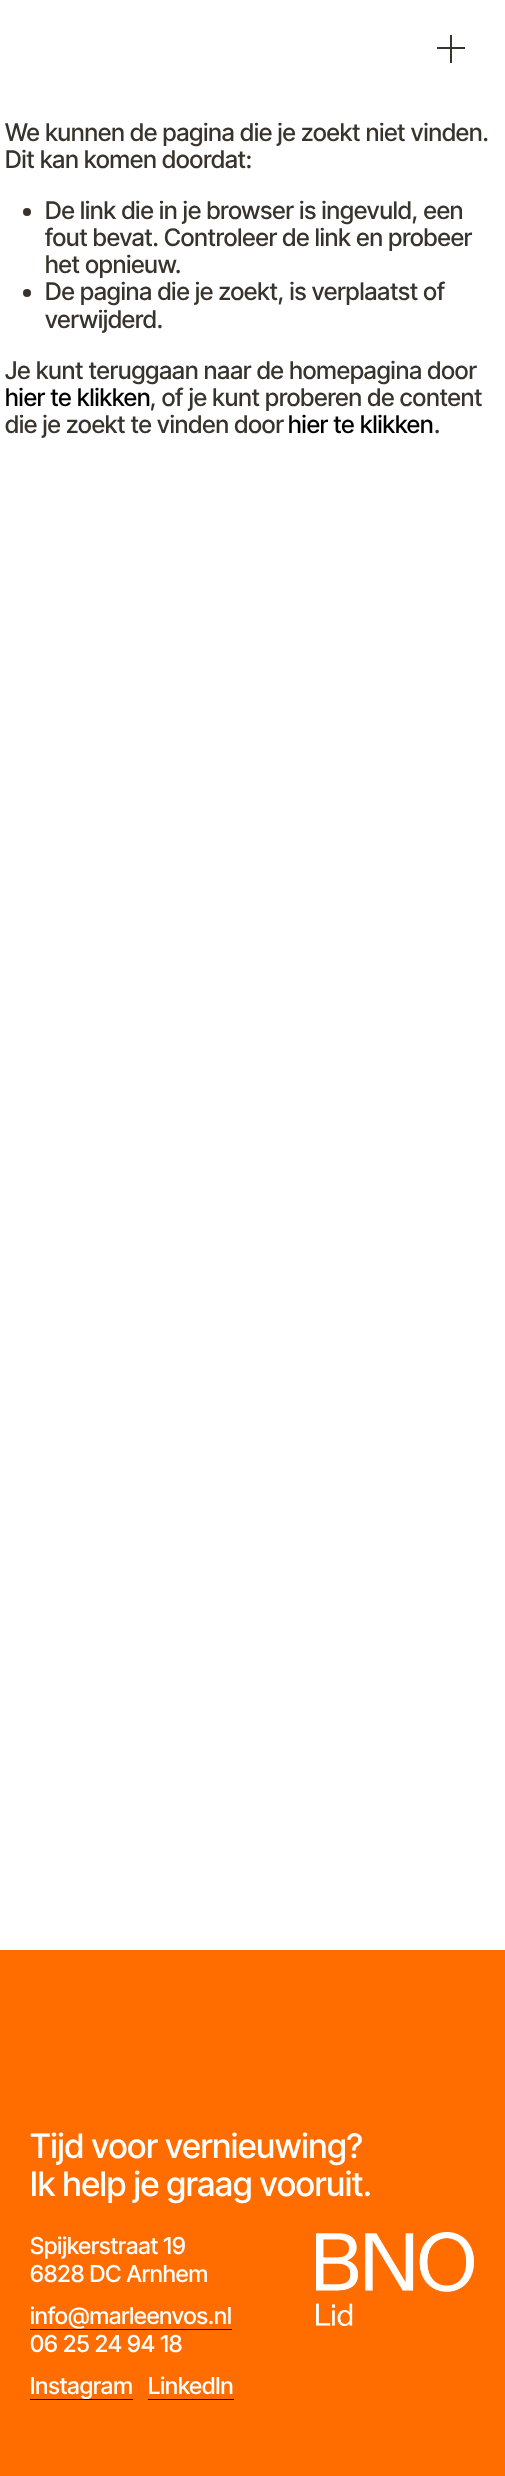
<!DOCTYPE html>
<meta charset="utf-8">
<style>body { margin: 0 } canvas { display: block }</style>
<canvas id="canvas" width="505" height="2476"></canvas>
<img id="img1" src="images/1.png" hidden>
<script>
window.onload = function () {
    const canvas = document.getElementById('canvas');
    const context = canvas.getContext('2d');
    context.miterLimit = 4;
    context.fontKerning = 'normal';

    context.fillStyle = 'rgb(255, 255, 255)';
    context.fillRect(0, 0, 505, 2476);
    context.fillStyle = 'rgb(56, 51, 44)';
    context.fillRect(437, 47, 28, 2);
    context.fillRect(450, 35, 2, 28);
    context.beginPath();
    context.arc(27, 212, 4, 0, 2 * Math.PI);
    context.fill();
    context.beginPath();
    context.arc(27, 293, 4, 0, 2 * Math.PI);
    context.fill();
    context.fillStyle = 'rgb(255, 108, 0)';
    context.fillRect(0, 1950, 505, 526);
    context.drawImage(document.getElementById('img1'), 316, 2232, 158, 94);
    context.fillStyle = 'rgb(0, 0, 0)';
    context.fillRect(30, 2329, 202, 1);
    context.fillRect(30, 2399, 103, 1);
    context.fillRect(148, 2399, 86, 1);
    context.font = '500 24.25px Inter Tight';
    context.fillStyle = 'rgb(56, 51, 44)';
    context.fillText('We kunnen de pagina die je zoekt niet vinden.', 5, 141);
    context.fillText('Dit kan komen doordat:', 5, 168);
    context.fillText('De link die in je browser is ingevuld, een', 45, 219);
    context.fillText('fout bevat. Controleer de link en probeer', 45, 246);
    context.fillText('het opnieuw.', 45, 273);
    context.fillText('De pagina die je zoekt, is verplaatst of', 45, 300);
    context.fillText('verwijderd.', 45, 328);
    context.fillText('Je kunt teruggaan naar de homepagina door', 5, 379);
    context.fillStyle = 'rgb(0, 0, 0)';
    context.fillText('hier te klikken', 5, 406);
    context.fillStyle = 'rgb(56, 51, 44)';
    context.fillText(', of je kunt proberen de content', 150, 406);
    context.fillText('die je zoekt te vinden door', 5, 433);
    context.fillStyle = 'rgb(0, 0, 0)';
    context.fillText('hier te klikken', 288, 433);
    context.fillStyle = 'rgb(56, 51, 44)';
    context.fillText('.', 434, 433);
    context.font = '500 33.75px Inter Tight';
    context.fillStyle = 'rgb(255, 255, 255)';
    context.fillText('Tijd voor vernieuwing?', 30, 2158);
    context.fillText('Ik help je graag vooruit.', 30, 2196);
    context.font = '500 23.25px Inter Tight';
    context.fillText('Spijkerstraat 19', 30, 2254);
    context.fillText('6828 DC Arnhem', 30, 2282);
    context.fillText('info@marleenvos.nl', 30, 2324);
    context.fillText('06 25 24 94 18', 30, 2352);
    context.fillText('Instagram', 30, 2394);
    context.fillText('LinkedIn', 148, 2394);
};
</script>
